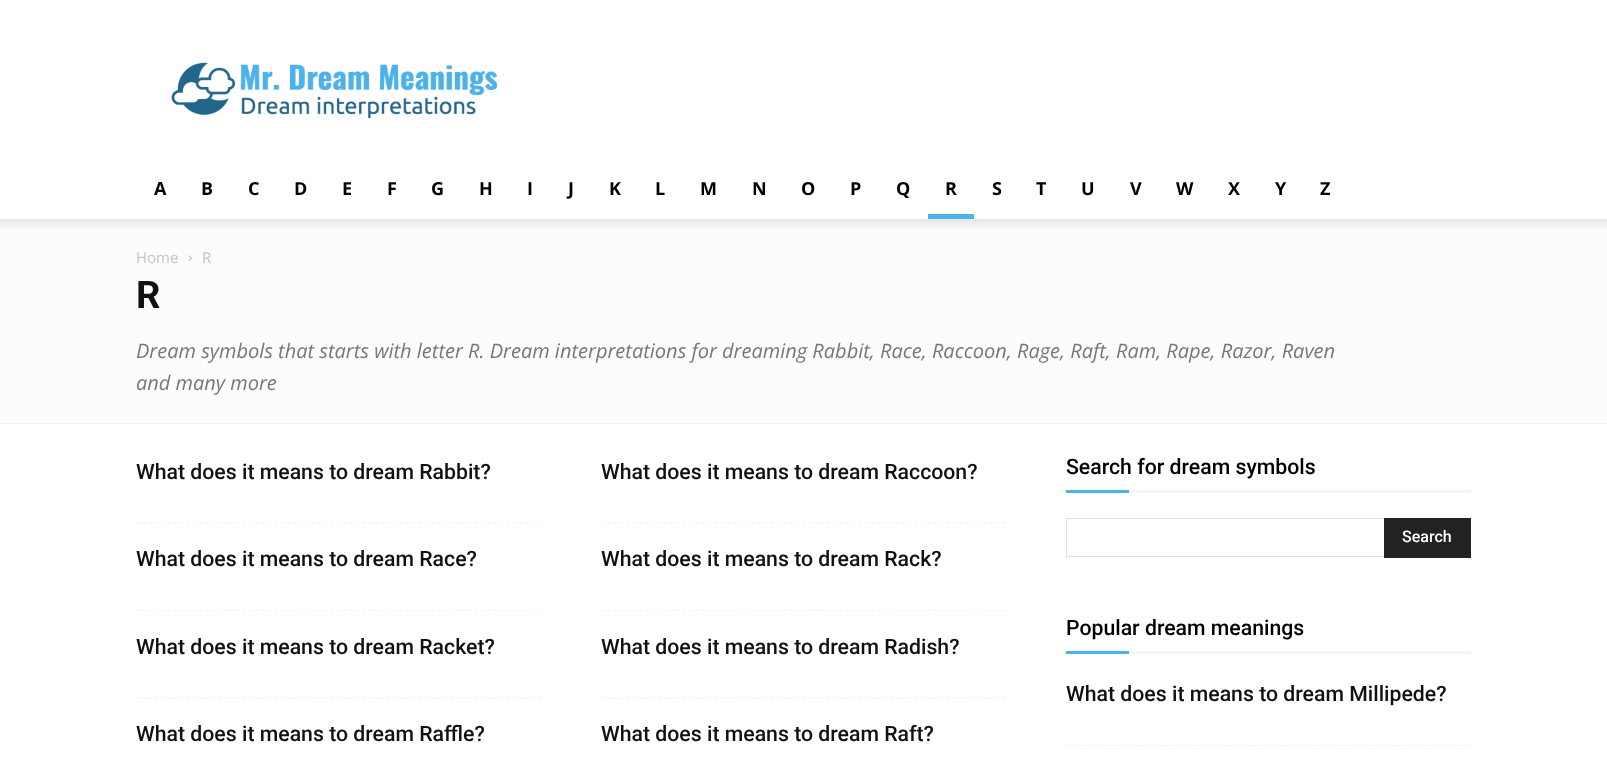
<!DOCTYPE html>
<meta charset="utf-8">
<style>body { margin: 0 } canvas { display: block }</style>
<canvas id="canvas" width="1607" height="776"></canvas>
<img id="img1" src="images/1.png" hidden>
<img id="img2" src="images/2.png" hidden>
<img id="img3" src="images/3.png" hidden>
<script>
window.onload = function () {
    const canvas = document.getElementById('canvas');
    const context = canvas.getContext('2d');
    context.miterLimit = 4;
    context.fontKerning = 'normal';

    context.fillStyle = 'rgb(255, 255, 255)';
    context.fillRect(0, 0, 1607, 776);
    context.drawImage(document.getElementById('img1'), 171, 62, 327, 57);
    context.fillStyle = 'rgb(77, 178, 236)';
    context.fillRect(928, 214, 46, 5);
    context.fillStyle = 'rgb(252, 252, 252)';
    context.fillRect(0, 219, 1607, 204);
    context.drawImage(document.getElementById('img2'), 0, 219, 1607, 10);
    context.fillStyle = 'rgb(242, 242, 242)';
    context.fillRect(0, 423, 1607, 1);
    context.drawImage(document.getElementById('img3'), 188, 255, 4, 6);
    context.beginPath();
    context.moveTo(136, 523);
    context.lineTo(541, 523);
    context.strokeStyle = 'rgb(242, 242, 242)';
    context.lineWidth = 1.2;
    context.setLineDash([3.75, 2.52]);
    context.stroke();
    context.beginPath();
    context.moveTo(601, 523);
    context.lineTo(1006, 523);
    context.stroke();
    context.beginPath();
    context.moveTo(136, 610.5);
    context.lineTo(541, 610.5);
    context.stroke();
    context.beginPath();
    context.moveTo(601, 610.5);
    context.lineTo(1006, 610.5);
    context.stroke();
    context.beginPath();
    context.moveTo(136, 698);
    context.lineTo(541, 698);
    context.stroke();
    context.beginPath();
    context.moveTo(601, 698);
    context.lineTo(1006, 698);
    context.stroke();
    context.fillStyle = 'rgb(77, 178, 236)';
    context.fillRect(1066, 490, 63, 3);
    context.fillStyle = 'rgb(245, 245, 245)';
    context.fillRect(1129, 490, 342, 3);
    context.fillStyle = 'rgb(225, 225, 225)';
    context.fillRect(1066, 518, 318, 1);
    context.fillRect(1066, 556, 318, 1);
    context.fillRect(1066, 518, 1, 40);
    context.fillStyle = 'rgb(34, 34, 34)';
    context.fillRect(1384, 518, 87, 40);
    context.fillStyle = 'rgb(77, 178, 236)';
    context.fillRect(1066, 651, 63, 3);
    context.fillStyle = 'rgb(245, 245, 245)';
    context.fillRect(1129, 651, 342, 3);
    context.beginPath();
    context.moveTo(1066, 745.5);
    context.lineTo(1471, 745.5);
    context.stroke();
    context.font = 'bold 18px Open Sans';
    context.fillStyle = 'rgb(0, 0, 0)';
    context.fillText('A', 154, 195);
    context.fillText('B', 201, 195);
    context.fillText('C', 248, 195);
    context.fillText('D', 294, 195);
    context.fillText('E', 342, 195);
    context.fillText('F', 387, 195);
    context.fillText('G', 431, 195);
    context.fillText('H', 479, 195);
    context.fillText('I', 527, 195);
    context.fillText('J', 568, 195);
    context.fillText('K', 609, 195);
    context.fillText('L', 655, 195);
    context.fillText('M', 700, 195);
    context.fillText('N', 752, 195);
    context.fillText('O', 801, 195);
    context.fillText('P', 850, 195);
    context.fillText('Q', 896, 195);
    context.fillText('R', 945, 195);
    context.fillText('S', 992, 195);
    context.fillText('T', 1036, 195);
    context.fillText('U', 1081, 195);
    context.fillText('V', 1130, 195);
    context.fillText('W', 1176, 195);
    context.fillText('X', 1228, 195);
    context.fillText('Y', 1275, 195);
    context.fillText('Z', 1320, 195);
    context.font = '15px Open Sans';
    context.fillStyle = 'rgb(195, 195, 195)';
    context.fillText('Home', 136, 263);
    context.fillText('R', 202, 263);
    context.font = 'bold 38px Roboto';
    context.fillStyle = 'rgb(17, 17, 17)';
    context.fillText('R', 136, 308);
    context.font = 'italic 20px Open Sans';
    context.fillStyle = 'rgb(119, 119, 119)';
    context.fillText('Dream symbols that starts with letter R. Dream interpretations for dreaming Rabbit, Race, Raccoon, Rage, Raft, Ram, Rape, Razor, Raven', 136, 358);
    context.fillText('and many more', 136, 390);
    context.font = '500 21.25px Roboto';
    context.fillStyle = 'rgb(17, 17, 17)';
    context.fillText('What does it means to dream Rabbit?', 136, 479);
    context.fillText('What does it means to dream Raccoon?', 601, 479);
    context.fillText('What does it means to dream Race?', 136, 566);
    context.fillText('What does it means to dream Rack?', 601, 566);
    context.fillText('What does it means to dream Racket?', 136, 654);
    context.fillText('What does it means to dream Radish?', 601, 654);
    context.fillText('What does it means to dream Raffle?', 136, 741);
    context.fillText('What does it means to dream Raft?', 601, 741);
    context.fillStyle = 'rgb(0, 0, 0)';
    context.fillText('Search for dream symbols', 1066, 474);
    context.font = '500 16px Roboto';
    context.fillStyle = 'rgb(255, 255, 255)';
    context.fillText('Search', 1402, 542);
    context.font = '500 21.25px Roboto';
    context.fillStyle = 'rgb(0, 0, 0)';
    context.fillText('Popular dream meanings', 1066, 635);
    context.fillStyle = 'rgb(17, 17, 17)';
    context.fillText('What does it means to dream Millipede?', 1066, 701);
};
</script>
